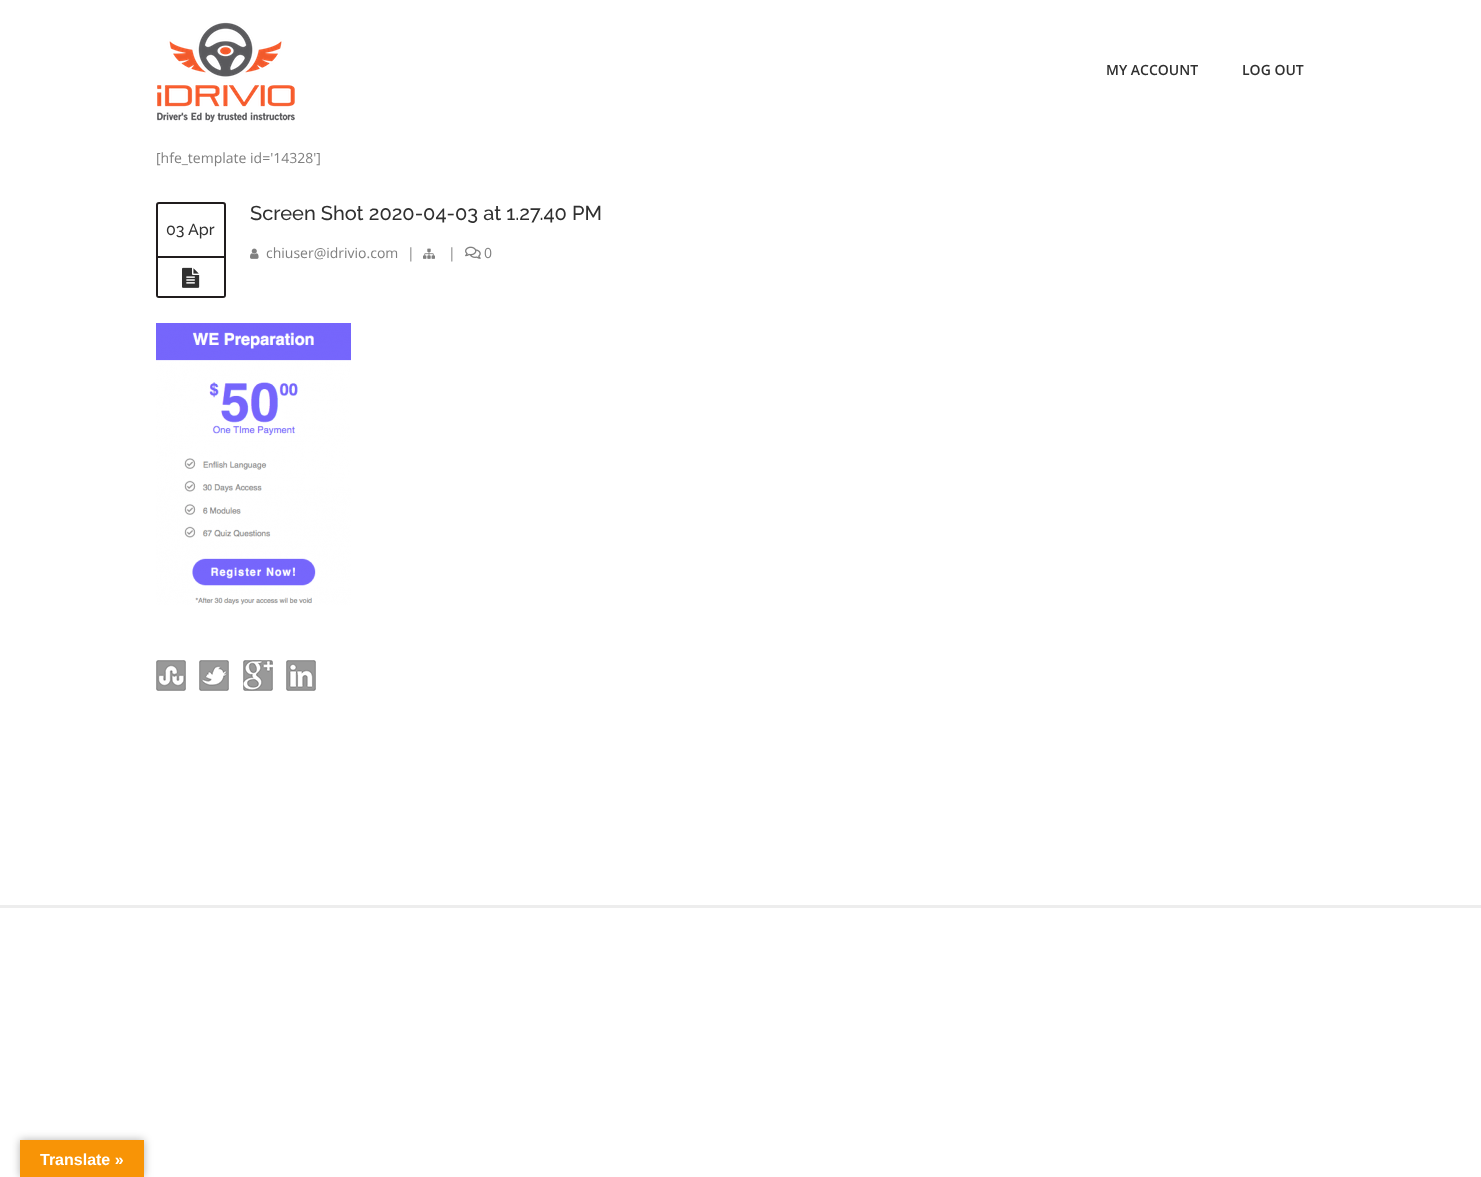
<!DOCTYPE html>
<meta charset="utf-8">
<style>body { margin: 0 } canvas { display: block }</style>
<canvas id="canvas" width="1481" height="1177"></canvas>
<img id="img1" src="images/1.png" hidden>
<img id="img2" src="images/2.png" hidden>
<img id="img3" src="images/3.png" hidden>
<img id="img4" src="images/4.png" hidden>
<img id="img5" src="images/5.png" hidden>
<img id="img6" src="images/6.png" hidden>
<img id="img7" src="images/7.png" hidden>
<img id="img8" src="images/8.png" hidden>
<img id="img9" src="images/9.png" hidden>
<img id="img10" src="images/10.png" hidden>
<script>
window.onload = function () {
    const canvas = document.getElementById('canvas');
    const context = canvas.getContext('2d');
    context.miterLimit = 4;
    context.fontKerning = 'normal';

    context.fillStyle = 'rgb(255, 255, 255)';
    context.fillRect(0, 0, 1481, 1177);
    context.drawImage(document.getElementById('img1'), 157, 22, 138, 100);
    context.beginPath();
    context.roundRect(157, 203, 68, 54, [2, 2, 0, 0]);
    context.strokeStyle = 'rgb(32, 28, 29)';
    context.lineWidth = 2;
    context.stroke();
    context.fillStyle = 'rgb(32, 28, 29)';
    context.beginPath();
    context.moveTo(156, 258);
    context.lineTo(226, 258);
    context.lineTo(226, 295);
    context.bezierCurveTo(226, 297, 225, 298, 223, 298);
    context.lineTo(159, 298);
    context.bezierCurveTo(157, 298, 156, 297, 156, 295);
    context.closePath();
    context.moveTo(158, 258);
    context.lineTo(224, 258);
    context.lineTo(224, 295);
    context.bezierCurveTo(224, 296, 224, 296, 223, 296);
    context.lineTo(159, 296);
    context.bezierCurveTo(158, 296, 158, 296, 158, 295);
    context.closePath();
    context.fill('evenodd');
    context.drawImage(document.getElementById('img2'), 182, 267, 18, 21);
    context.drawImage(document.getElementById('img3'), 250, 248, 9, 11);
    context.drawImage(document.getElementById('img4'), 423, 248, 12, 11);
    context.drawImage(document.getElementById('img5'), 465, 246, 16, 13);
    context.drawImage(document.getElementById('img6'), 156, 323, 195, 282);
    context.drawImage(document.getElementById('img7'), 156, 660, 30, 31);
    context.drawImage(document.getElementById('img8'), 199, 660, 30, 31);
    context.drawImage(document.getElementById('img9'), 243, 660, 30, 31);
    context.drawImage(document.getElementById('img10'), 286, 660, 30, 31);
    context.fillStyle = 'rgb(237, 237, 237)';
    context.fillRect(0, 905, 1481, 3);
    context.fillStyle = 'rgba(0, 0, 0, 0.3)';
    context.filter = 'blur(4.5px)';
    context.beginPath();
    context.rect(20, 1140, 124, 37);
    context.fill();
    context.filter = 'none';
    context.fillStyle = 'rgb(248, 148, 6)';
    context.fillRect(20, 1140, 124, 37);
    context.font = '600 14px Open Sans';
    context.fillStyle = 'rgb(48, 48, 48)';
    context.fillText('MY ACCOUNT', 1106, 75);
    context.fillText('LOG OUT', 1242, 75);
    context.font = '14px Open Sans';
    context.fillStyle = 'rgb(128, 128, 128)';
    context.fillText('[hfe_template id=\'14328\']', 156, 163);
    context.font = '500 20px Raleway';
    context.fillStyle = 'rgb(48, 48, 48)';
    context.fillText('Screen Shot 2020-04-03 at 1.27.40 PM', 250, 220);
    context.font = '500 16px Raleway';
    context.fillText('03 Apr', 166, 235);
    context.font = '14px Open Sans';
    context.fillStyle = 'rgb(128, 128, 128)';
    context.fillText('chiuser@idrivio.com', 266, 258);
    context.fillText('|', 407, 258);
    context.fillText('|', 448, 258);
    context.fillText('0', 484, 258);
    context.font = 'bold 16px Liberation Sans';
    context.fillStyle = 'rgb(255, 255, 255)';
    context.fillText('Translate »', 40, 1165);
};
</script>
